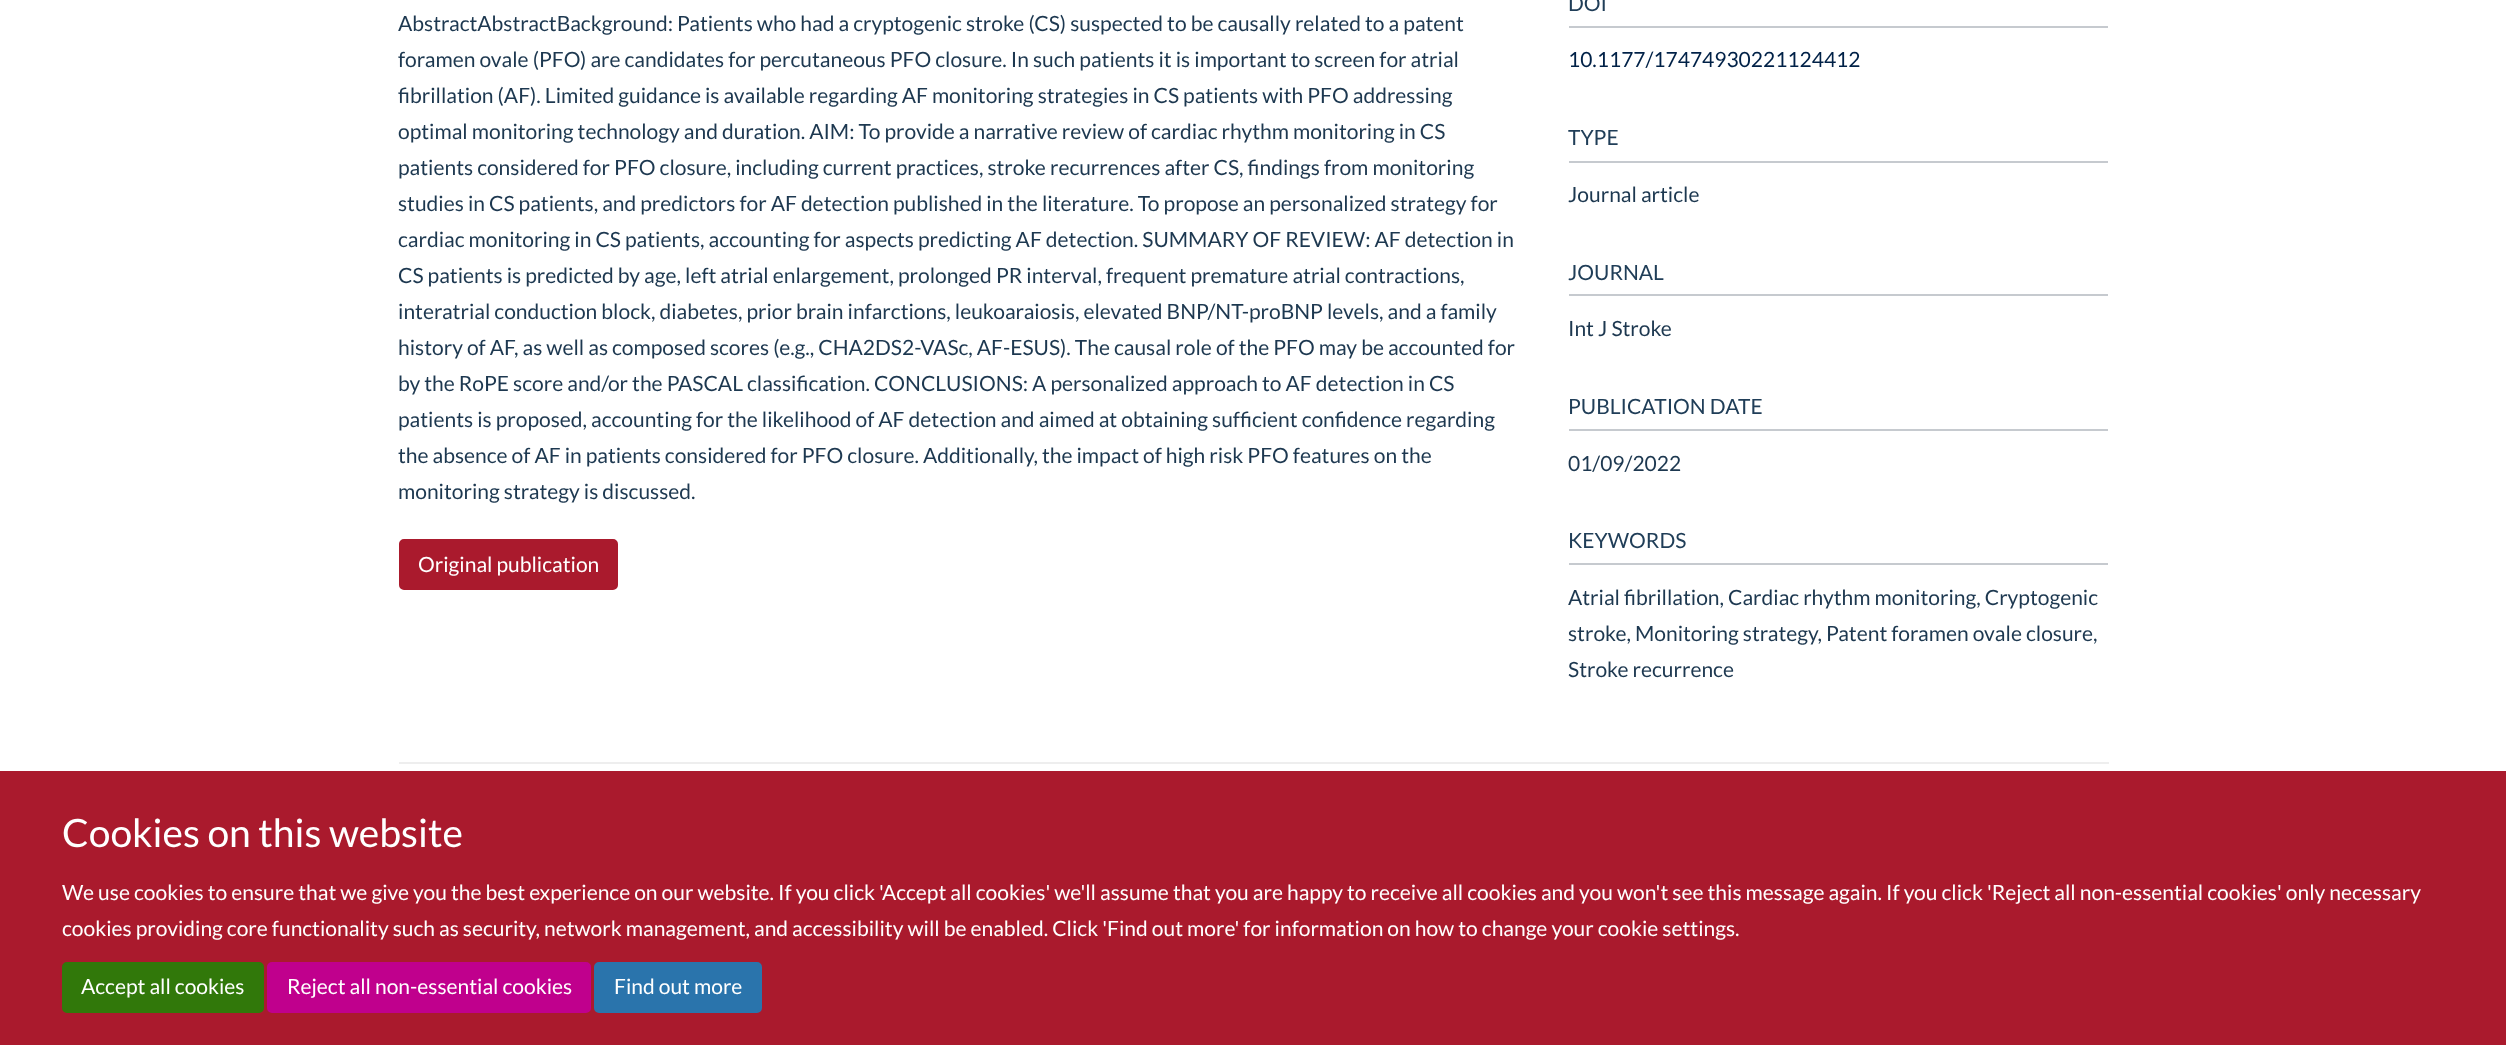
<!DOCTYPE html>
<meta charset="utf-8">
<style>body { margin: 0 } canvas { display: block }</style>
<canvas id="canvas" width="2506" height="1045"></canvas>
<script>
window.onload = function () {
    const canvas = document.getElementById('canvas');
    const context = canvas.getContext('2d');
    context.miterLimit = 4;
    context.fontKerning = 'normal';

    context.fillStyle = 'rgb(255, 255, 255)';
    context.fillRect(0, 0, 2506, 1045);
    context.fillStyle = 'rgb(170, 26, 45)';
    context.beginPath();
    context.roundRect(400, 540, 217, 49, 4);
    context.fill();
    context.strokeStyle = 'rgb(170, 26, 45)';
    context.lineWidth = 2;
    context.stroke();
    context.fillStyle = 'rgb(198, 202, 207)';
    context.fillRect(1569, 26, 539, 2);
    context.fillRect(1569, 161, 539, 2);
    context.fillRect(1569, 294, 539, 2);
    context.fillRect(1569, 429, 539, 2);
    context.fillRect(1569, 563, 539, 2);
    context.fillStyle = 'rgb(238, 238, 238)';
    context.fillRect(399, 762, 1710, 2);
    context.fillStyle = 'rgb(170, 26, 45)';
    context.fillRect(0, 771, 2506, 274);
    context.fillStyle = 'rgb(49, 120, 10)';
    context.beginPath();
    context.roundRect(63, 963, 200, 49, 4);
    context.fill();
    context.strokeStyle = 'rgb(49, 120, 10)';
    context.stroke();
    context.fillStyle = 'rgb(192, 0, 141)';
    context.beginPath();
    context.roundRect(268, 963, 322, 49, 4);
    context.fill();
    context.strokeStyle = 'rgb(192, 0, 141)';
    context.stroke();
    context.fillStyle = 'rgb(42, 116, 172)';
    context.beginPath();
    context.roundRect(595, 963, 166, 49, 4);
    context.fill();
    context.strokeStyle = 'rgb(42, 116, 172)';
    context.stroke();
    context.font = '21px Lato';
    context.fillStyle = 'rgb(29, 56, 80)';
    context.fillText('AbstractAbstractBackground: Patients who had a cryptogenic stroke (CS) suspected to be causally related to a patent', 398, 31);
    context.fillText('foramen ovale (PFO) are candidates for percutaneous PFO closure. In such patients it is important to screen for atrial', 398, 67);
    context.fillText('fibrillation (AF). Limited guidance is available regarding AF monitoring strategies in CS patients with PFO addressing', 398, 103);
    context.fillText('optimal monitoring technology and duration. AIM: To provide a narrative review of cardiac rhythm monitoring in CS', 398, 139);
    context.fillText('patients considered for PFO closure, including current practices, stroke recurrences after CS, findings from monitoring', 398, 175);
    context.fillText('studies in CS patients, and predictors for AF detection published in the literature. To propose an personalized strategy for', 398, 211);
    context.fillText('cardiac monitoring in CS patients, accounting for aspects predicting AF detection. SUMMARY OF REVIEW: AF detection in', 398, 247);
    context.fillText('CS patients is predicted by age, left atrial enlargement, prolonged PR interval, frequent premature atrial contractions,', 398, 283);
    context.fillText('interatrial conduction block, diabetes, prior brain infarctions, leukoaraiosis, elevated BNP/NT-proBNP levels, and a family', 398, 319);
    context.fillText('history of AF, as well as composed scores (e.g., CHA2DS2-VASc, AF-ESUS). The causal role of the PFO may be accounted for', 398, 355);
    context.fillText('by the RoPE score and/or the PASCAL classification. CONCLUSIONS: A personalized approach to AF detection in CS', 398, 391);
    context.fillText('patients is proposed, accounting for the likelihood of AF detection and aimed at obtaining sufficient confidence regarding', 398, 427);
    context.fillText('the absence of AF in patients considered for PFO closure. Additionally, the impact of high risk PFO features on the', 398, 463);
    context.fillText('monitoring strategy is discussed.', 398, 499);
    context.fillStyle = 'rgb(255, 255, 255)';
    context.fillText('Original publication', 418, 572);
    context.fillStyle = 'rgb(32, 62, 88)';
    context.fillText('DOI', 1568, 11);
    context.fillStyle = 'rgb(0, 33, 71)';
    context.fillText('10.1177/17474930221124412', 1568, 67);
    context.fillStyle = 'rgb(32, 62, 88)';
    context.fillText('TYPE', 1568, 145);
    context.fillStyle = 'rgb(29, 56, 80)';
    context.fillText('Journal article', 1568, 202);
    context.fillStyle = 'rgb(32, 62, 88)';
    context.fillText('JOURNAL', 1568, 280);
    context.fillStyle = 'rgb(29, 56, 80)';
    context.fillText('Int J Stroke', 1568, 336);
    context.fillStyle = 'rgb(32, 62, 88)';
    context.fillText('PUBLICATION DATE', 1568, 414);
    context.fillStyle = 'rgb(29, 56, 80)';
    context.fillText('01/09/2022', 1568, 471);
    context.fillStyle = 'rgb(32, 62, 88)';
    context.fillText('KEYWORDS', 1568, 548);
    context.fillStyle = 'rgb(29, 56, 80)';
    context.fillText('Atrial fibrillation, Cardiac rhythm monitoring, Cryptogenic', 1568, 605);
    context.fillText('stroke, Monitoring strategy, Patent foramen ovale closure,', 1568, 641);
    context.fillText('Stroke recurrence', 1568, 677);
    context.font = '39px Lato';
    context.fillStyle = 'rgb(255, 255, 255)';
    context.fillText('Cookies on this website', 62, 847);
    context.font = '21px Lato';
    context.fillText('We use cookies to ensure that we give you the best experience on our website. If you click \'Accept all cookies\' we\'ll assume that you are happy to receive all cookies and you won\'t see this message again. If you click \'Reject all non-essential cookies\' only necessary', 62, 900);
    context.fillText('cookies providing core functionality such as security, network management, and accessibility will be enabled. Click \'Find out more\' for information on how to change your cookie settings.', 62, 936);
    context.fillText('Accept all cookies', 81, 994);
    context.fillText('Reject all non-essential cookies', 287, 994);
    context.fillText('Find out more', 614, 994);
};
</script>
